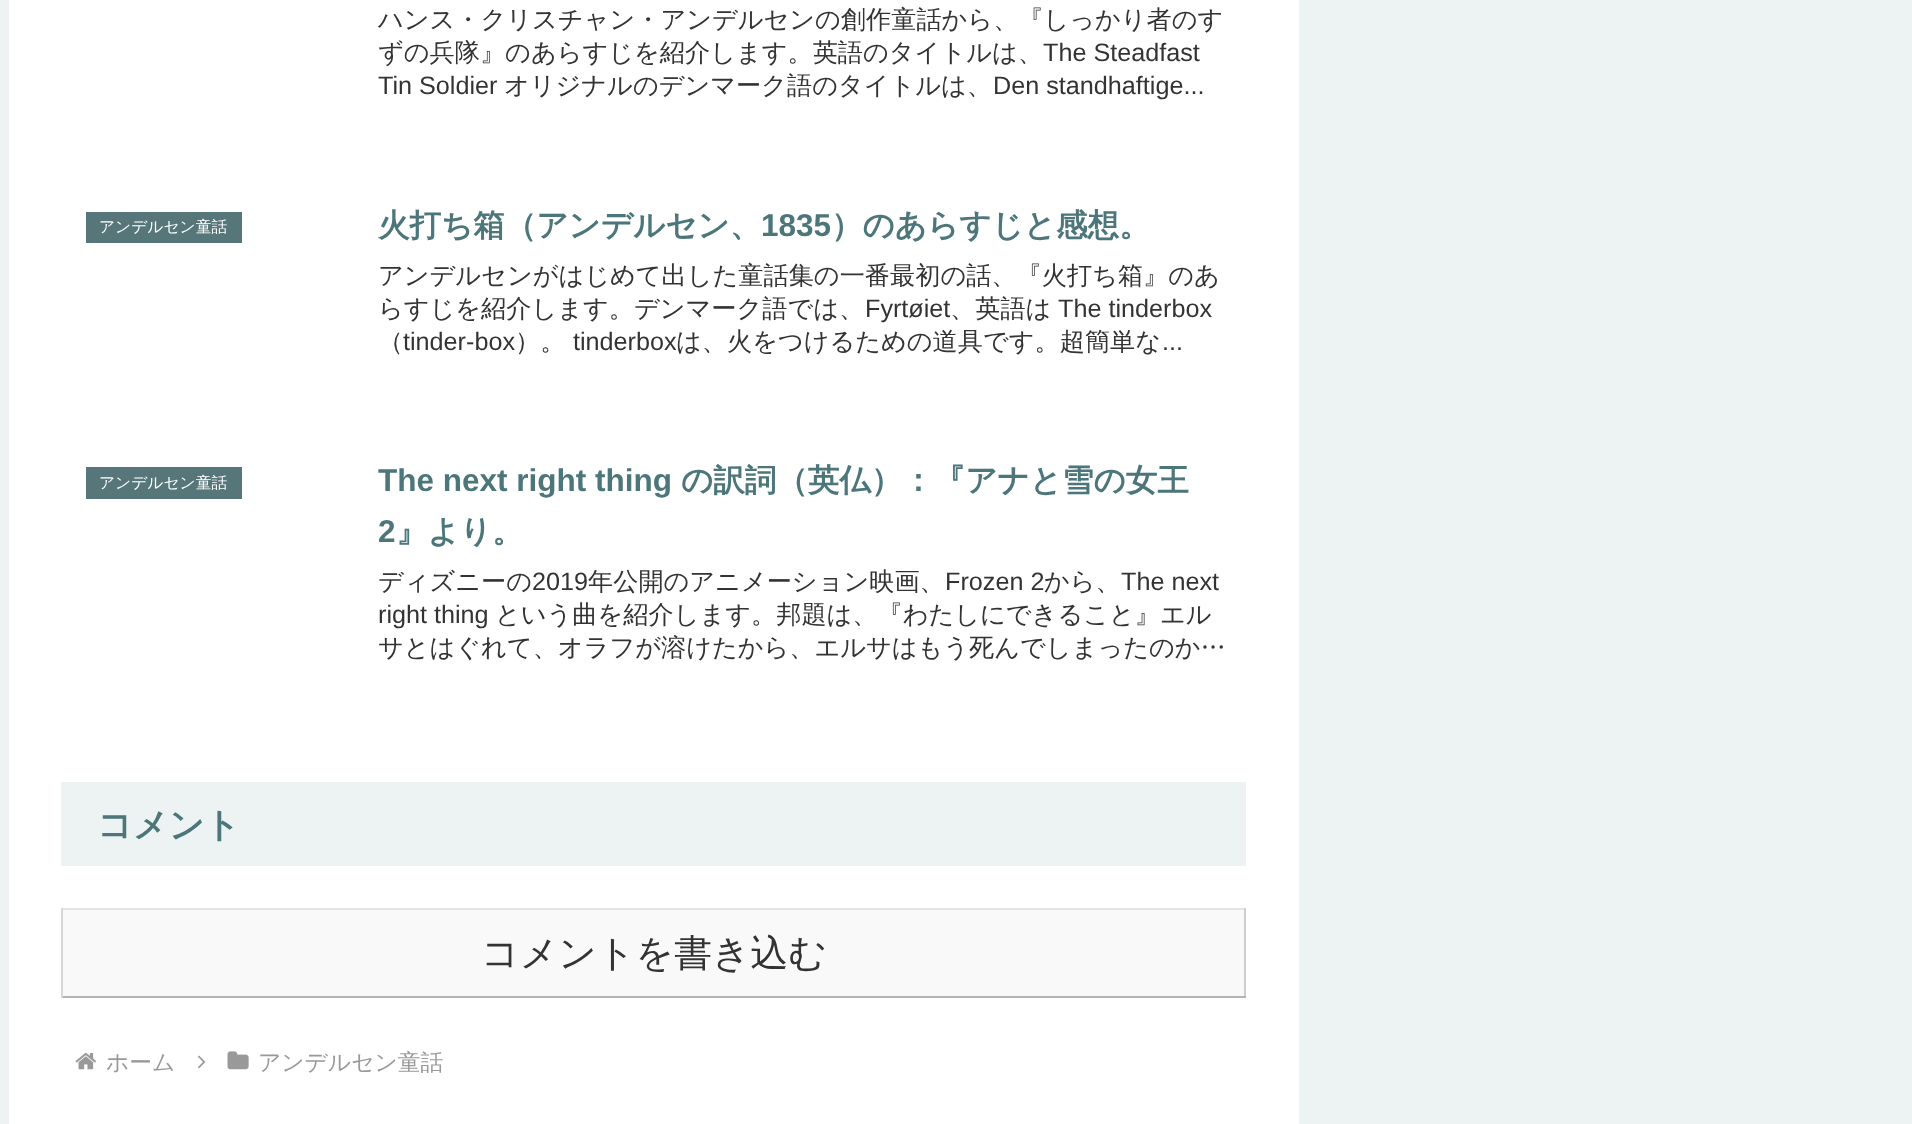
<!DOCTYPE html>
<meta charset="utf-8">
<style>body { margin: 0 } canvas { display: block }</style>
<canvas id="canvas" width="1912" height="1124"></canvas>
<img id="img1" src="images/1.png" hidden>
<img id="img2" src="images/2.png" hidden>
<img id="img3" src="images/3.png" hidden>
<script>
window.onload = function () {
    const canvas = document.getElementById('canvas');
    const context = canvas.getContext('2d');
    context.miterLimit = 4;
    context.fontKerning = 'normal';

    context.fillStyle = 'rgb(237, 243, 243)';
    context.fillRect(0, 0, 1912, 1124);
    context.fillStyle = 'rgb(255, 255, 255)';
    context.fillRect(9, 0, 1290, 1124);
    context.fillStyle = 'rgb(86, 118, 122)';
    context.fillRect(86, 212, 156, 31);
    context.fillRect(86, 467, 156, 32);
    context.fillStyle = 'rgb(237, 243, 243)';
    context.fillRect(61, 782, 1185, 84);
    context.fillStyle = 'rgb(249, 249, 249)';
    context.fillRect(63, 910, 1181, 86);
    context.fillStyle = 'rgb(227, 227, 227)';
    context.fillRect(61, 908, 1185, 2);
    context.fillStyle = 'rgb(206, 206, 206)';
    context.fillRect(1244, 908, 2, 90);
    context.fillStyle = 'rgb(180, 180, 180)';
    context.fillRect(61, 996, 1185, 2);
    context.fillStyle = 'rgb(214, 214, 214)';
    context.fillRect(61, 908, 2, 90);
    context.drawImage(document.getElementById('img1'), 75, 1053, 21, 17);
    context.drawImage(document.getElementById('img2'), 198, 1055, 8, 14);
    context.drawImage(document.getElementById('img3'), 227, 1051, 22, 19);
    context.font = '500 25.2px WenQuanYi Zen Hei';
    context.fillStyle = 'rgb(51, 51, 51)';
    context.fillText('ハンス・クリスチャン・アンデルセンの創作童話から、『しっかり者のす', 378, 28);
    context.fillText('ずの兵隊』のあらすじを紹介します。英語のタイトルは、', 378, 61);
    context.font = '25.2px Liberation Sans';
    context.fillText('The Steadfast', 1043, 61);
    context.fillText('Tin Soldier', 378, 94);
    context.font = '500 25.2px WenQuanYi Zen Hei';
    context.fillText('オリジナルのデンマーク語のタイトルは、', 504, 94);
    context.font = '25.2px Liberation Sans';
    context.fillText('Den standhaftige...', 993, 94);
    context.font = '500 15.75px WenQuanYi Zen Hei';
    context.fillStyle = 'rgb(255, 255, 255)';
    context.fillText('アンデルセン童話', 99, 232);
    context.font = 'bold 31.5px WenQuanYi Zen Hei';
    context.fillStyle = 'rgb(77, 118, 123)';
    context.fillText('火打ち箱（アンデルセン、', 378, 236);
    context.font = 'bold 31.5px Liberation Sans';
    context.fillText('1835', 761, 236);
    context.font = 'bold 31.5px WenQuanYi Zen Hei';
    context.fillText('）のあらすじと感想。', 831, 236);
    context.font = '500 25.2px WenQuanYi Zen Hei';
    context.fillStyle = 'rgb(51, 51, 51)';
    context.fillText('アンデルセンがはじめて出した童話集の一番最初の話、『火打ち箱』のあ', 378, 284);
    context.fillText('らすじを紹介します。デンマーク語では、', 378, 317);
    context.font = '25.2px Liberation Sans';
    context.fillText('Fyrtøiet', 865, 317);
    context.font = '500 25.2px WenQuanYi Zen Hei';
    context.fillText('、英語は', 950, 317);
    context.font = '25.2px Liberation Sans';
    context.fillText('The tinderbox', 1058, 317);
    context.font = '500 25.2px WenQuanYi Zen Hei';
    context.fillText('（', 378, 350);
    context.font = '25.2px Liberation Sans';
    context.fillText('tinder-box', 403, 350);
    context.font = '500 25.2px WenQuanYi Zen Hei';
    context.fillText('）。', 515, 350);
    context.font = '25.2px Liberation Sans';
    context.fillText('tinderbox', 573, 350);
    context.font = '500 25.2px WenQuanYi Zen Hei';
    context.fillText('は、火をつけるための道具です。超簡単な', 676, 350);
    context.font = '25.2px Liberation Sans';
    context.fillText('...', 1162, 350);
    context.font = '500 15.75px WenQuanYi Zen Hei';
    context.fillStyle = 'rgb(255, 255, 255)';
    context.fillText('アンデルセン童話', 99, 488);
    context.font = 'bold 31.5px Liberation Sans';
    context.fillStyle = 'rgb(77, 118, 123)';
    context.fillText('The next right thing', 378, 491);
    context.font = 'bold 31.5px WenQuanYi Zen Hei';
    context.fillText('の訳詞（英仏）：『アナと雪の女王', 681, 491);
    context.font = 'bold 31.5px Liberation Sans';
    context.fillText('2', 378, 542);
    context.font = 'bold 31.5px WenQuanYi Zen Hei';
    context.fillText('』より。', 396, 542);
    context.font = '500 25.2px WenQuanYi Zen Hei';
    context.fillStyle = 'rgb(51, 51, 51)';
    context.fillText('ディズニーの', 378, 590);
    context.font = '25.2px Liberation Sans';
    context.fillText('2019', 532, 590);
    context.font = '500 25.2px WenQuanYi Zen Hei';
    context.fillText('年公開のアニメーション映画、', 588, 590);
    context.font = '25.2px Liberation Sans';
    context.fillText('Frozen 2', 945, 590);
    context.font = '500 25.2px WenQuanYi Zen Hei';
    context.fillText('から、', 1044, 590);
    context.font = '25.2px Liberation Sans';
    context.fillText('The next', 1121, 590);
    context.fillText('right thing', 378, 623);
    context.font = '500 25.2px WenQuanYi Zen Hei';
    context.fillText('という曲を紹介します。邦題は、『わたしにできること』エル', 495, 623);
    context.fillText('サとはぐれて、オラフが溶けたから、エルサはもう死んでしまったのか…', 378, 656);
    context.font = 'bold 35px WenQuanYi Zen Hei';
    context.fillStyle = 'rgb(77, 118, 123)';
    context.fillText('コメント', 97, 837);
    context.font = '500 37.75px WenQuanYi Zen Hei';
    context.fillStyle = 'rgb(51, 51, 51)';
    context.fillText('コメントを書き込む', 481, 966);
    context.font = '500 22.75px WenQuanYi Zen Hei';
    context.fillStyle = 'rgb(153, 153, 153)';
    context.fillText('ホーム', 106, 1070);
    context.fillText('アンデルセン童話', 258, 1070);
};
</script>
